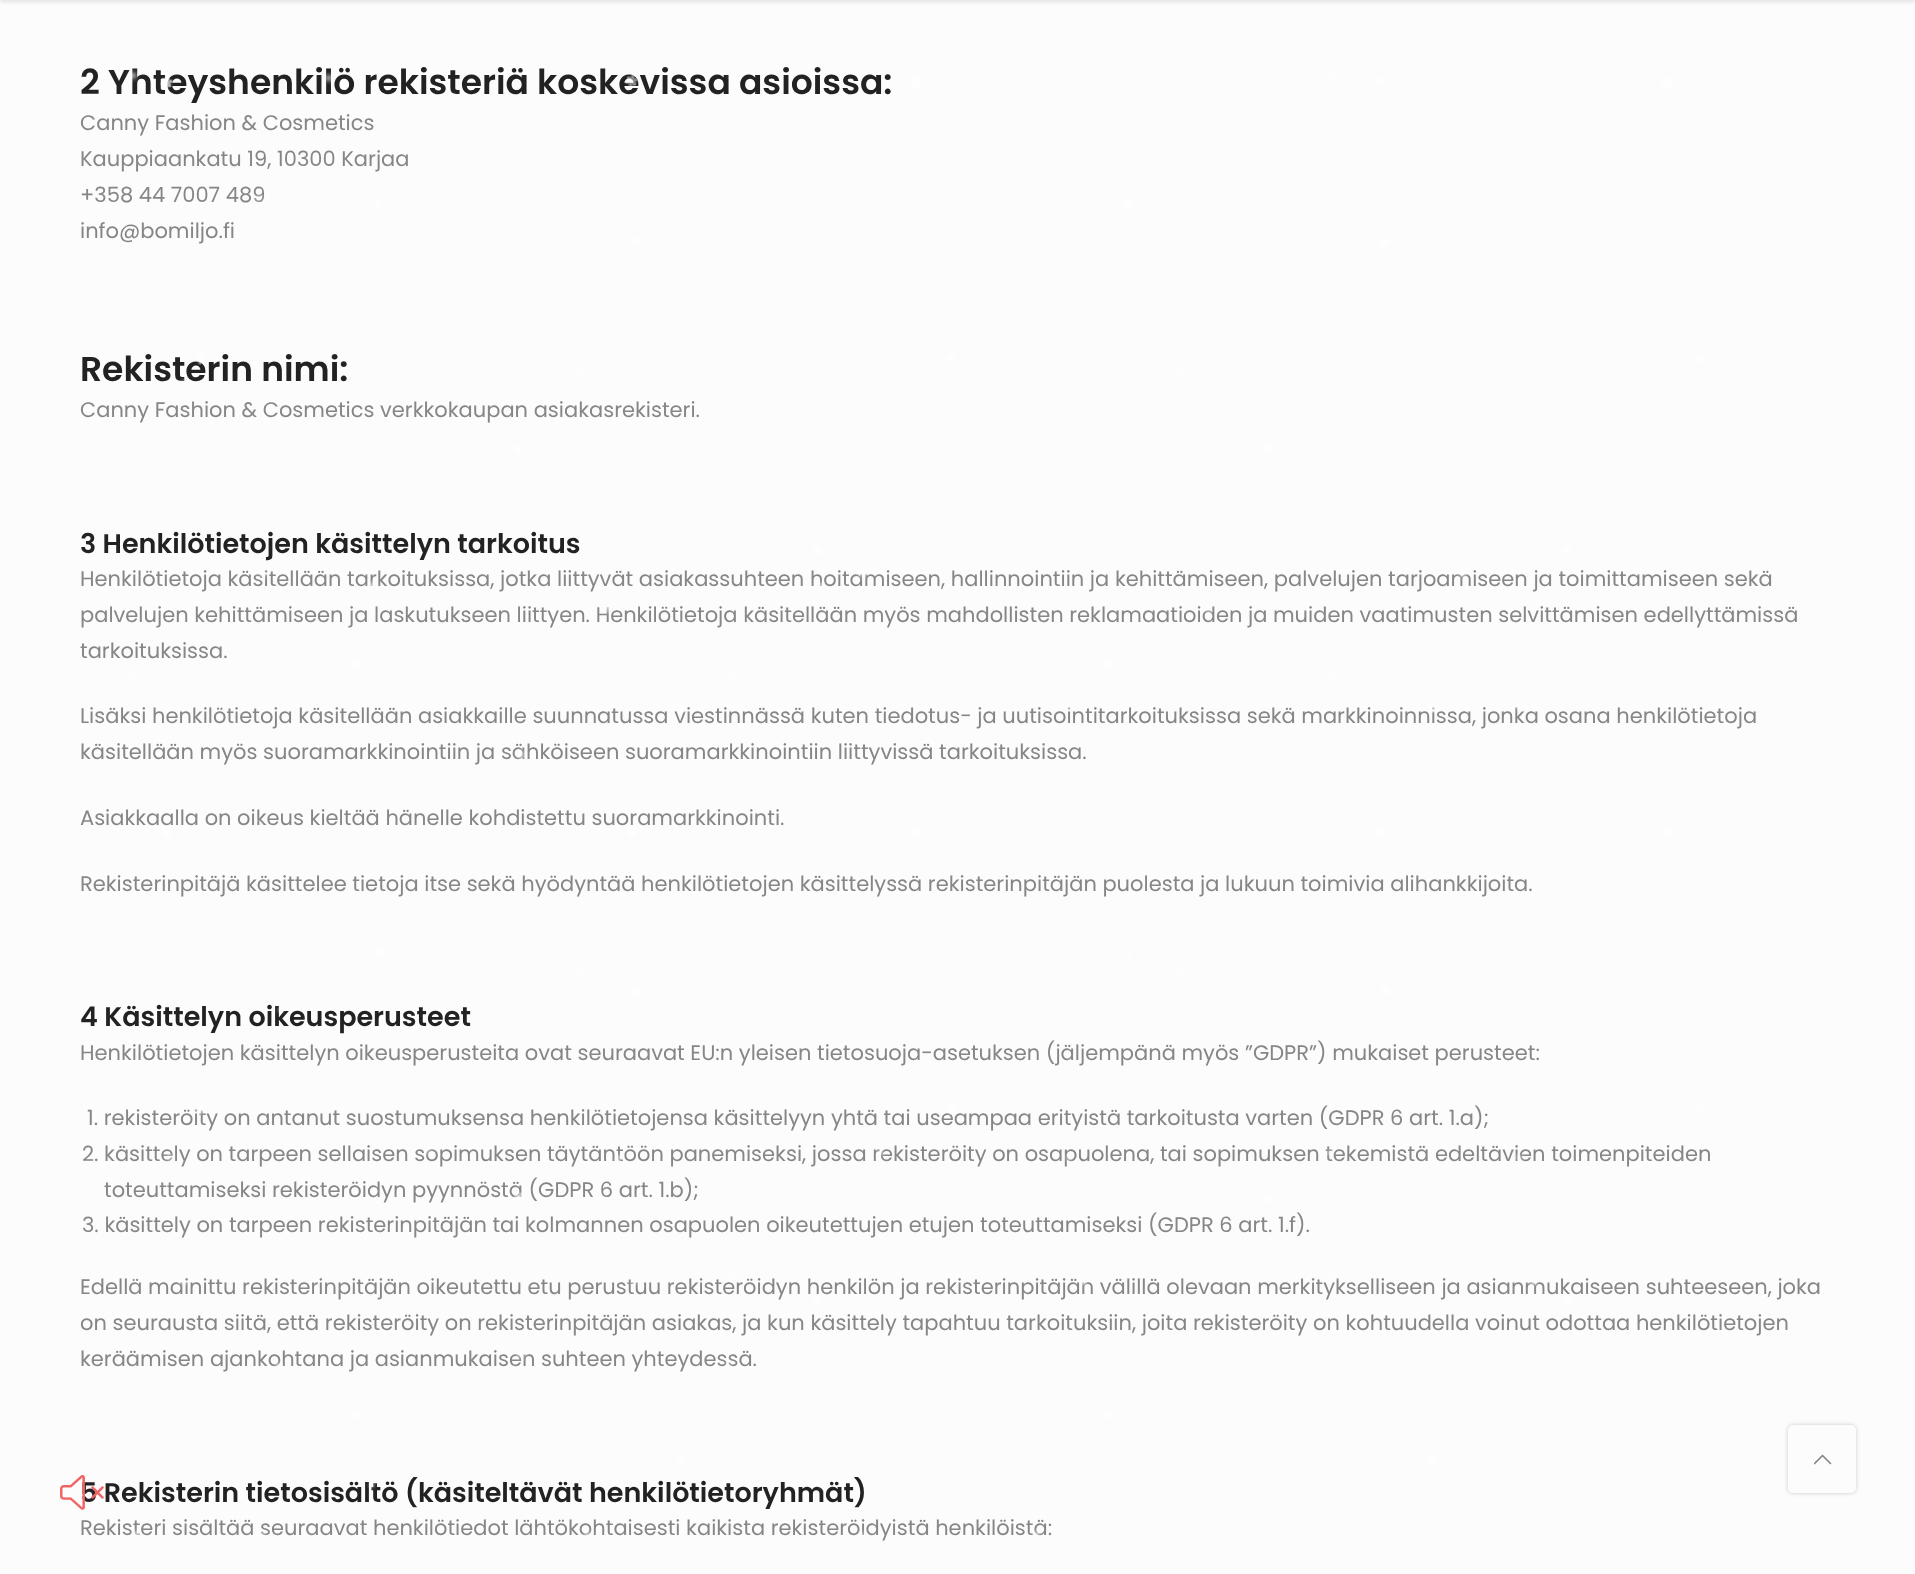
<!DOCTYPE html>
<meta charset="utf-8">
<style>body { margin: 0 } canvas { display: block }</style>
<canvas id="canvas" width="1915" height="1574"></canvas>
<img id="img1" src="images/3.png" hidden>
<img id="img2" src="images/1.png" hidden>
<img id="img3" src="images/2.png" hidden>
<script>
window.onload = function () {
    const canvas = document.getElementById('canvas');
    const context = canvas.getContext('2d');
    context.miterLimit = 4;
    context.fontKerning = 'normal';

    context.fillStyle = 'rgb(252, 252, 252)';
    context.fillRect(0, 0, 1915, 1574);
    context.fillStyle = 'rgba(0, 0, 0, 0.1)';
    context.filter = 'blur(2px)';
    context.beginPath();
    context.rect(0, -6, 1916, 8);
    context.fill();
    context.filter = 'none';
    context.fillStyle = 'rgba(0, 0, 0, 0.2)';
    context.filter = 'blur(2px)';
    context.beginPath();
    context.roundRect(1788, 1425, 68, 68, 5);
    context.fill();
    context.filter = 'none';
    context.fillStyle = 'rgb(252, 252, 252)';
    context.beginPath();
    context.roundRect(1788, 1425, 68, 68, 5);
    context.fill();
    context.drawImage(document.getElementById('img1'), 1814, 1454, 18, 11);
    context.font = '600 34.5px Poppins';
    context.fillStyle = 'rgb(34, 34, 34)';
    context.fillText('2 Yhteyshenkilö rekisteriä koskevissa asioissa:', 80, 94);
    context.font = '21px Poppins';
    context.fillStyle = 'rgb(134, 134, 134)';
    context.fillText('Canny Fashion & Cosmetics', 80, 130);
    context.fillText('Kauppiaankatu 19, 10300 Karjaa', 80, 166);
    context.fillText('+358 44 7007 489', 80, 202);
    context.fillText('info@bomiljo.fi', 80, 238);
    context.font = '600 34.5px Poppins';
    context.fillStyle = 'rgb(34, 34, 34)';
    context.fillText('Rekisterin nimi:', 80, 381);
    context.font = '21px Poppins';
    context.fillStyle = 'rgb(134, 134, 134)';
    context.fillText('Canny Fashion & Cosmetics verkkokaupan asiakasrekisteri.', 80, 417);
    context.font = '600 27px Poppins';
    context.fillStyle = 'rgb(34, 34, 34)';
    context.fillText('3 Henkilötietojen käsittelyn tarkoitus', 80, 553);
    context.font = '21px Poppins';
    context.fillStyle = 'rgb(134, 134, 134)';
    context.fillText('Henkilötietoja käsitellään tarkoituksissa, jotka liittyvät asiakassuhteen hoitamiseen, hallinnointiin ja kehittämiseen, palvelujen tarjoamiseen ja toimittamiseen sekä', 80, 586);
    context.fillText('palvelujen kehittämiseen ja laskutukseen liittyen. Henkilötietoja käsitellään myös mahdollisten reklamaatioiden ja muiden vaatimusten selvittämisen edellyttämissä', 80, 622);
    context.fillText('tarkoituksissa.', 80, 658);
    context.fillText('Lisäksi henkilötietoja käsitellään asiakkaille suunnatussa viestinnässä kuten tiedotus- ja uutisointitarkoituksissa sekä markkinoinnissa, jonka osana henkilötietoja', 80, 723);
    context.fillText('käsitellään myös suoramarkkinointiin ja sähköiseen suoramarkkinointiin liittyvissä tarkoituksissa.', 80, 759);
    context.fillText('Asiakkaalla on oikeus kieltää hänelle kohdistettu suoramarkkinointi.', 80, 825);
    context.fillText('Rekisterinpitäjä käsittelee tietoja itse sekä hyödyntää henkilötietojen käsittelyssä rekisterinpitäjän puolesta ja lukuun toimivia alihankkijoita.', 80, 891);
    context.font = '600 27px Poppins';
    context.fillStyle = 'rgb(34, 34, 34)';
    context.fillText('4 Käsittelyn oikeusperusteet', 80, 1026);
    context.font = '21px Poppins';
    context.fillStyle = 'rgb(134, 134, 134)';
    context.fillText('Henkilötietojen käsittelyn oikeusperusteita ovat seuraavat EU:n yleisen tietosuoja-asetuksen (jäljempänä myös ”GDPR”) mukaiset perusteet:', 80, 1060);
    context.fillText('1. rekisteröity on antanut suostumuksensa henkilötietojensa käsittelyyn yhtä tai useampaa erityistä tarkoitusta varten (GDPR 6 art. 1.a);', 87, 1125);
    context.fillText('2. käsittely on tarpeen sellaisen sopimuksen täytäntöön panemiseksi, jossa rekisteröity on osapuolena, tai sopimuksen tekemistä edeltävien toimenpiteiden', 82, 1161);
    context.fillText('toteuttamiseksi rekisteröidyn pyynnöstä (GDPR 6 art. 1.b);', 104, 1197);
    context.fillText('3. käsittely on tarpeen rekisterinpitäjän tai kolmannen osapuolen oikeutettujen etujen toteuttamiseksi (GDPR 6 art. 1.f).', 82, 1232);
    context.fillText('Edellä mainittu rekisterinpitäjän oikeutettu etu perustuu rekisteröidyn henkilön ja rekisterinpitäjän välillä olevaan merkitykselliseen ja asianmukaiseen suhteeseen, joka', 80, 1294);
    context.fillText('on seurausta siitä, että rekisteröity on rekisterinpitäjän asiakas, ja kun käsittely tapahtuu tarkoituksiin, joita rekisteröity on kohtuudella voinut odottaa henkilötietojen', 80, 1330);
    context.fillText('keräämisen ajankohtana ja asianmukaisen suhteen yhteydessä.', 80, 1366);
    context.font = '600 27px Poppins';
    context.fillStyle = 'rgb(34, 34, 34)';
    context.fillText('5 Rekisterin tietosisältö (käsiteltävät henkilötietoryhmät)', 80, 1502);
    context.font = '21px Poppins';
    context.fillStyle = 'rgb(134, 134, 134)';
    context.fillText('Rekisteri sisältää seuraavat henkilötiedot lähtökohtaisesti kaikista rekisteröidyistä henkilöistä:', 80, 1535);
    context.drawImage(document.getElementById('img2'), 126, 69, 1601, 1467);
    context.drawImage(document.getElementById('img3'), 60, 1475, 44, 35);
};
</script>
